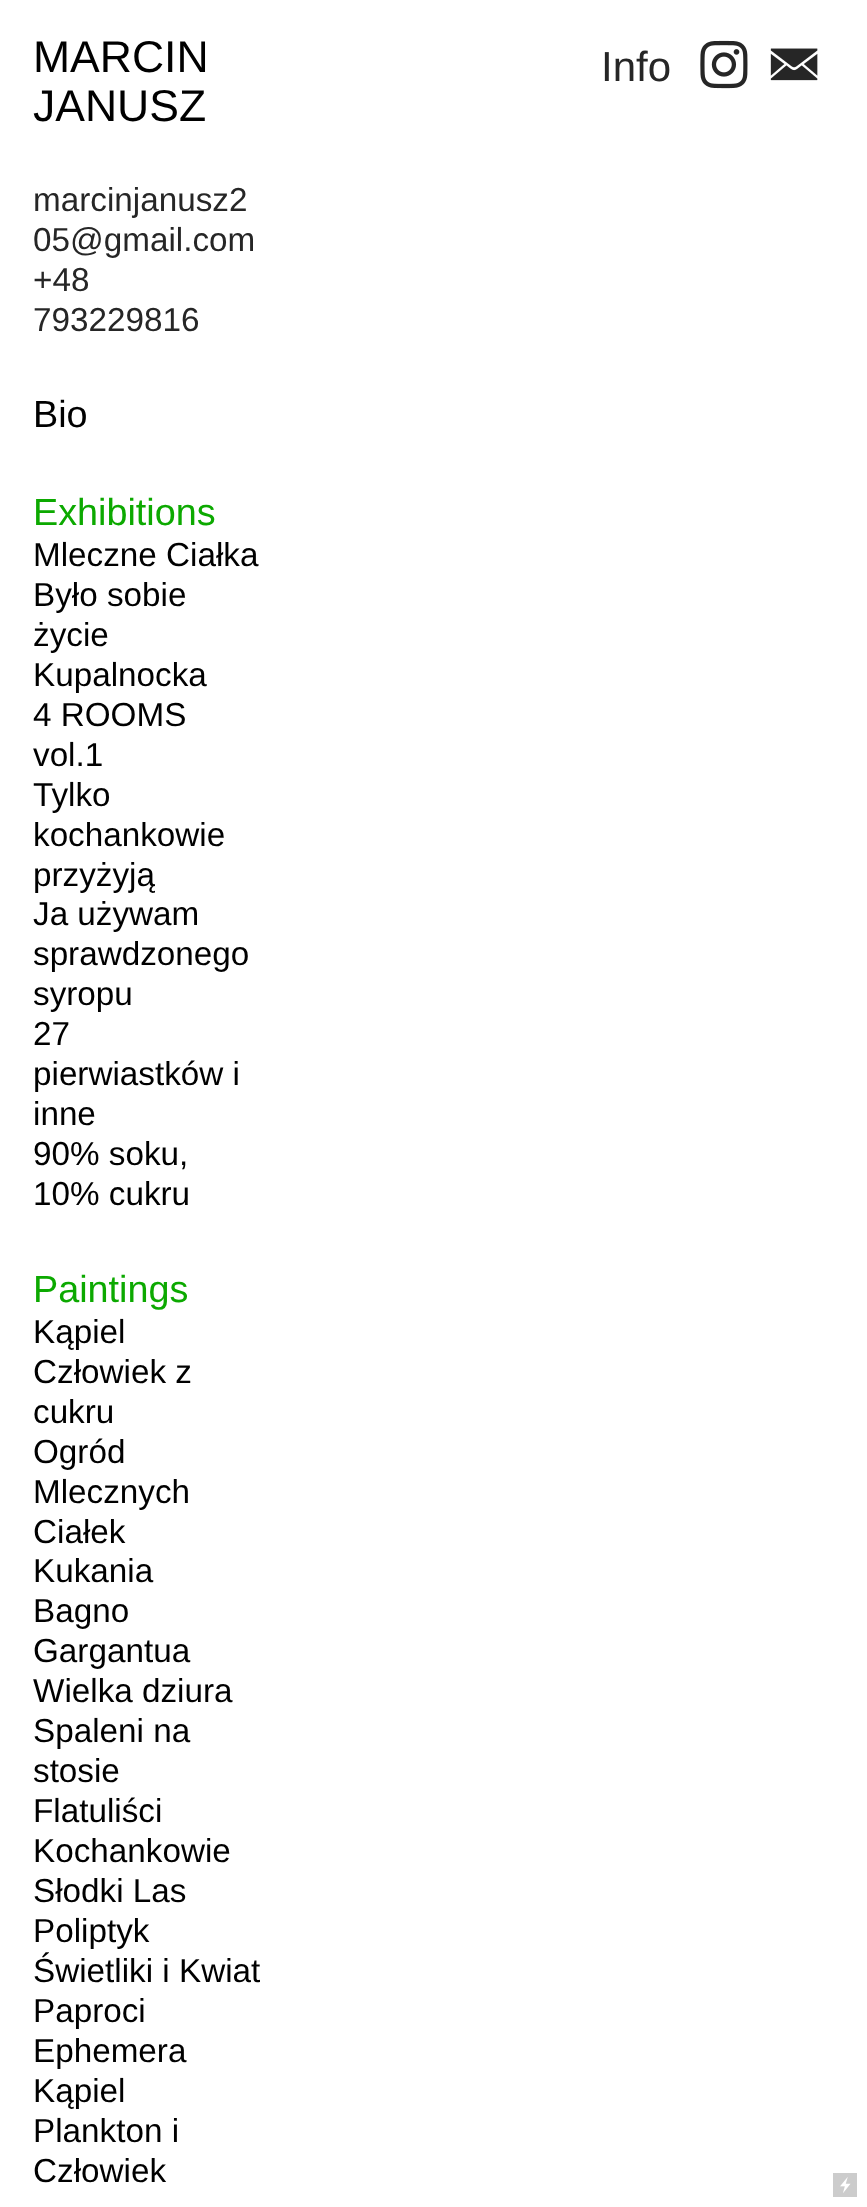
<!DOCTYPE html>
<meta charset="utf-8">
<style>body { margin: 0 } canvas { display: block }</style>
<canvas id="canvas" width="867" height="2207"></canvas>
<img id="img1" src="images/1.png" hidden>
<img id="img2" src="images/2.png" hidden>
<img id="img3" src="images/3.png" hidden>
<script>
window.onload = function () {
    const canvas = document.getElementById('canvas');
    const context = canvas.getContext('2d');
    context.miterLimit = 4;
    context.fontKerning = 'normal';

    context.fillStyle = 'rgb(255, 255, 255)';
    context.fillRect(0, 0, 867, 2207);
    context.drawImage(document.getElementById('img1'), 700, 40, 48, 49);
    context.drawImage(document.getElementById('img2'), 770, 48, 48, 33);
    context.fillStyle = 'rgb(204, 204, 204)';
    context.fillRect(833, 2173, 24, 24);
    context.drawImage(document.getElementById('img3'), 840, 2177, 11, 16);
    context.font = '44.5px Liberation Sans';
    context.fillStyle = 'rgb(0, 0, 0)';
    context.fillText('MARCIN', 33, 72);
    context.fillText('JANUSZ', 33, 121);
    context.font = '33.25px Liberation Sans';
    context.fillStyle = 'rgb(38, 38, 38)';
    context.fillText('marcinjanusz2', 33, 211);
    context.fillText('05@gmail.com', 33, 251);
    context.fillText('+48', 33, 291);
    context.fillText('793229816', 33, 331);
    context.font = '37.75px Liberation Sans';
    context.fillStyle = 'rgb(0, 0, 0)';
    context.fillText('Bio', 33, 427);
    context.fillStyle = 'rgb(12, 169, 0)';
    context.fillText('Exhibitions', 33, 525);
    context.font = '33.25px Liberation Sans';
    context.fillStyle = 'rgb(0, 0, 0)';
    context.fillText('Mleczne Ciałka', 33, 566);
    context.fillText('Było sobie', 33, 606);
    context.fillText('życie', 33, 646);
    context.fillText('Kupalnocka', 33, 686);
    context.fillText('4 ROOMS', 33, 726);
    context.fillText('vol.1', 33, 766);
    context.fillText('Tylko', 33, 806);
    context.fillText('kochankowie', 33, 846);
    context.fillText('przyżyją', 33, 886);
    context.fillText('Ja używam', 33, 925);
    context.fillText('sprawdzonego', 33, 965);
    context.fillText('syropu', 33, 1005);
    context.fillText('27', 33, 1045);
    context.fillText('pierwiastków i', 33, 1085);
    context.fillText('inne', 33, 1125);
    context.fillText('90% soku,', 33, 1165);
    context.fillText('10% cukru', 33, 1205);
    context.font = '37.75px Liberation Sans';
    context.fillStyle = 'rgb(12, 169, 0)';
    context.fillText('Paintings', 33, 1302);
    context.font = '33.25px Liberation Sans';
    context.fillStyle = 'rgb(0, 0, 0)';
    context.fillText('Kąpiel', 33, 1343);
    context.fillText('Człowiek z', 33, 1383);
    context.fillText('cukru', 33, 1423);
    context.fillText('Ogród', 33, 1463);
    context.fillText('Mlecznych', 33, 1503);
    context.fillText('Ciałek', 33, 1543);
    context.fillText('Kukania', 33, 1582);
    context.fillText('Bagno', 33, 1622);
    context.fillText('Gargantua', 33, 1662);
    context.fillText('Wielka dziura', 33, 1702);
    context.fillText('Spaleni na', 33, 1742);
    context.fillText('stosie', 33, 1782);
    context.fillText('Flatuliści', 33, 1822);
    context.fillText('Kochankowie', 33, 1862);
    context.fillText('Słodki Las', 33, 1902);
    context.fillText('Poliptyk', 33, 1942);
    context.fillText('Świetliki i Kwiat', 33, 1982);
    context.fillText('Paproci', 33, 2022);
    context.fillText('Ephemera', 33, 2062);
    context.fillText('Kąpiel', 33, 2102);
    context.fillText('Plankton i', 33, 2142);
    context.fillText('Człowiek', 33, 2182);
    context.font = '42px Liberation Sans';
    context.fillStyle = 'rgb(38, 38, 38)';
    context.fillText('Info', 601, 81);
};
</script>
